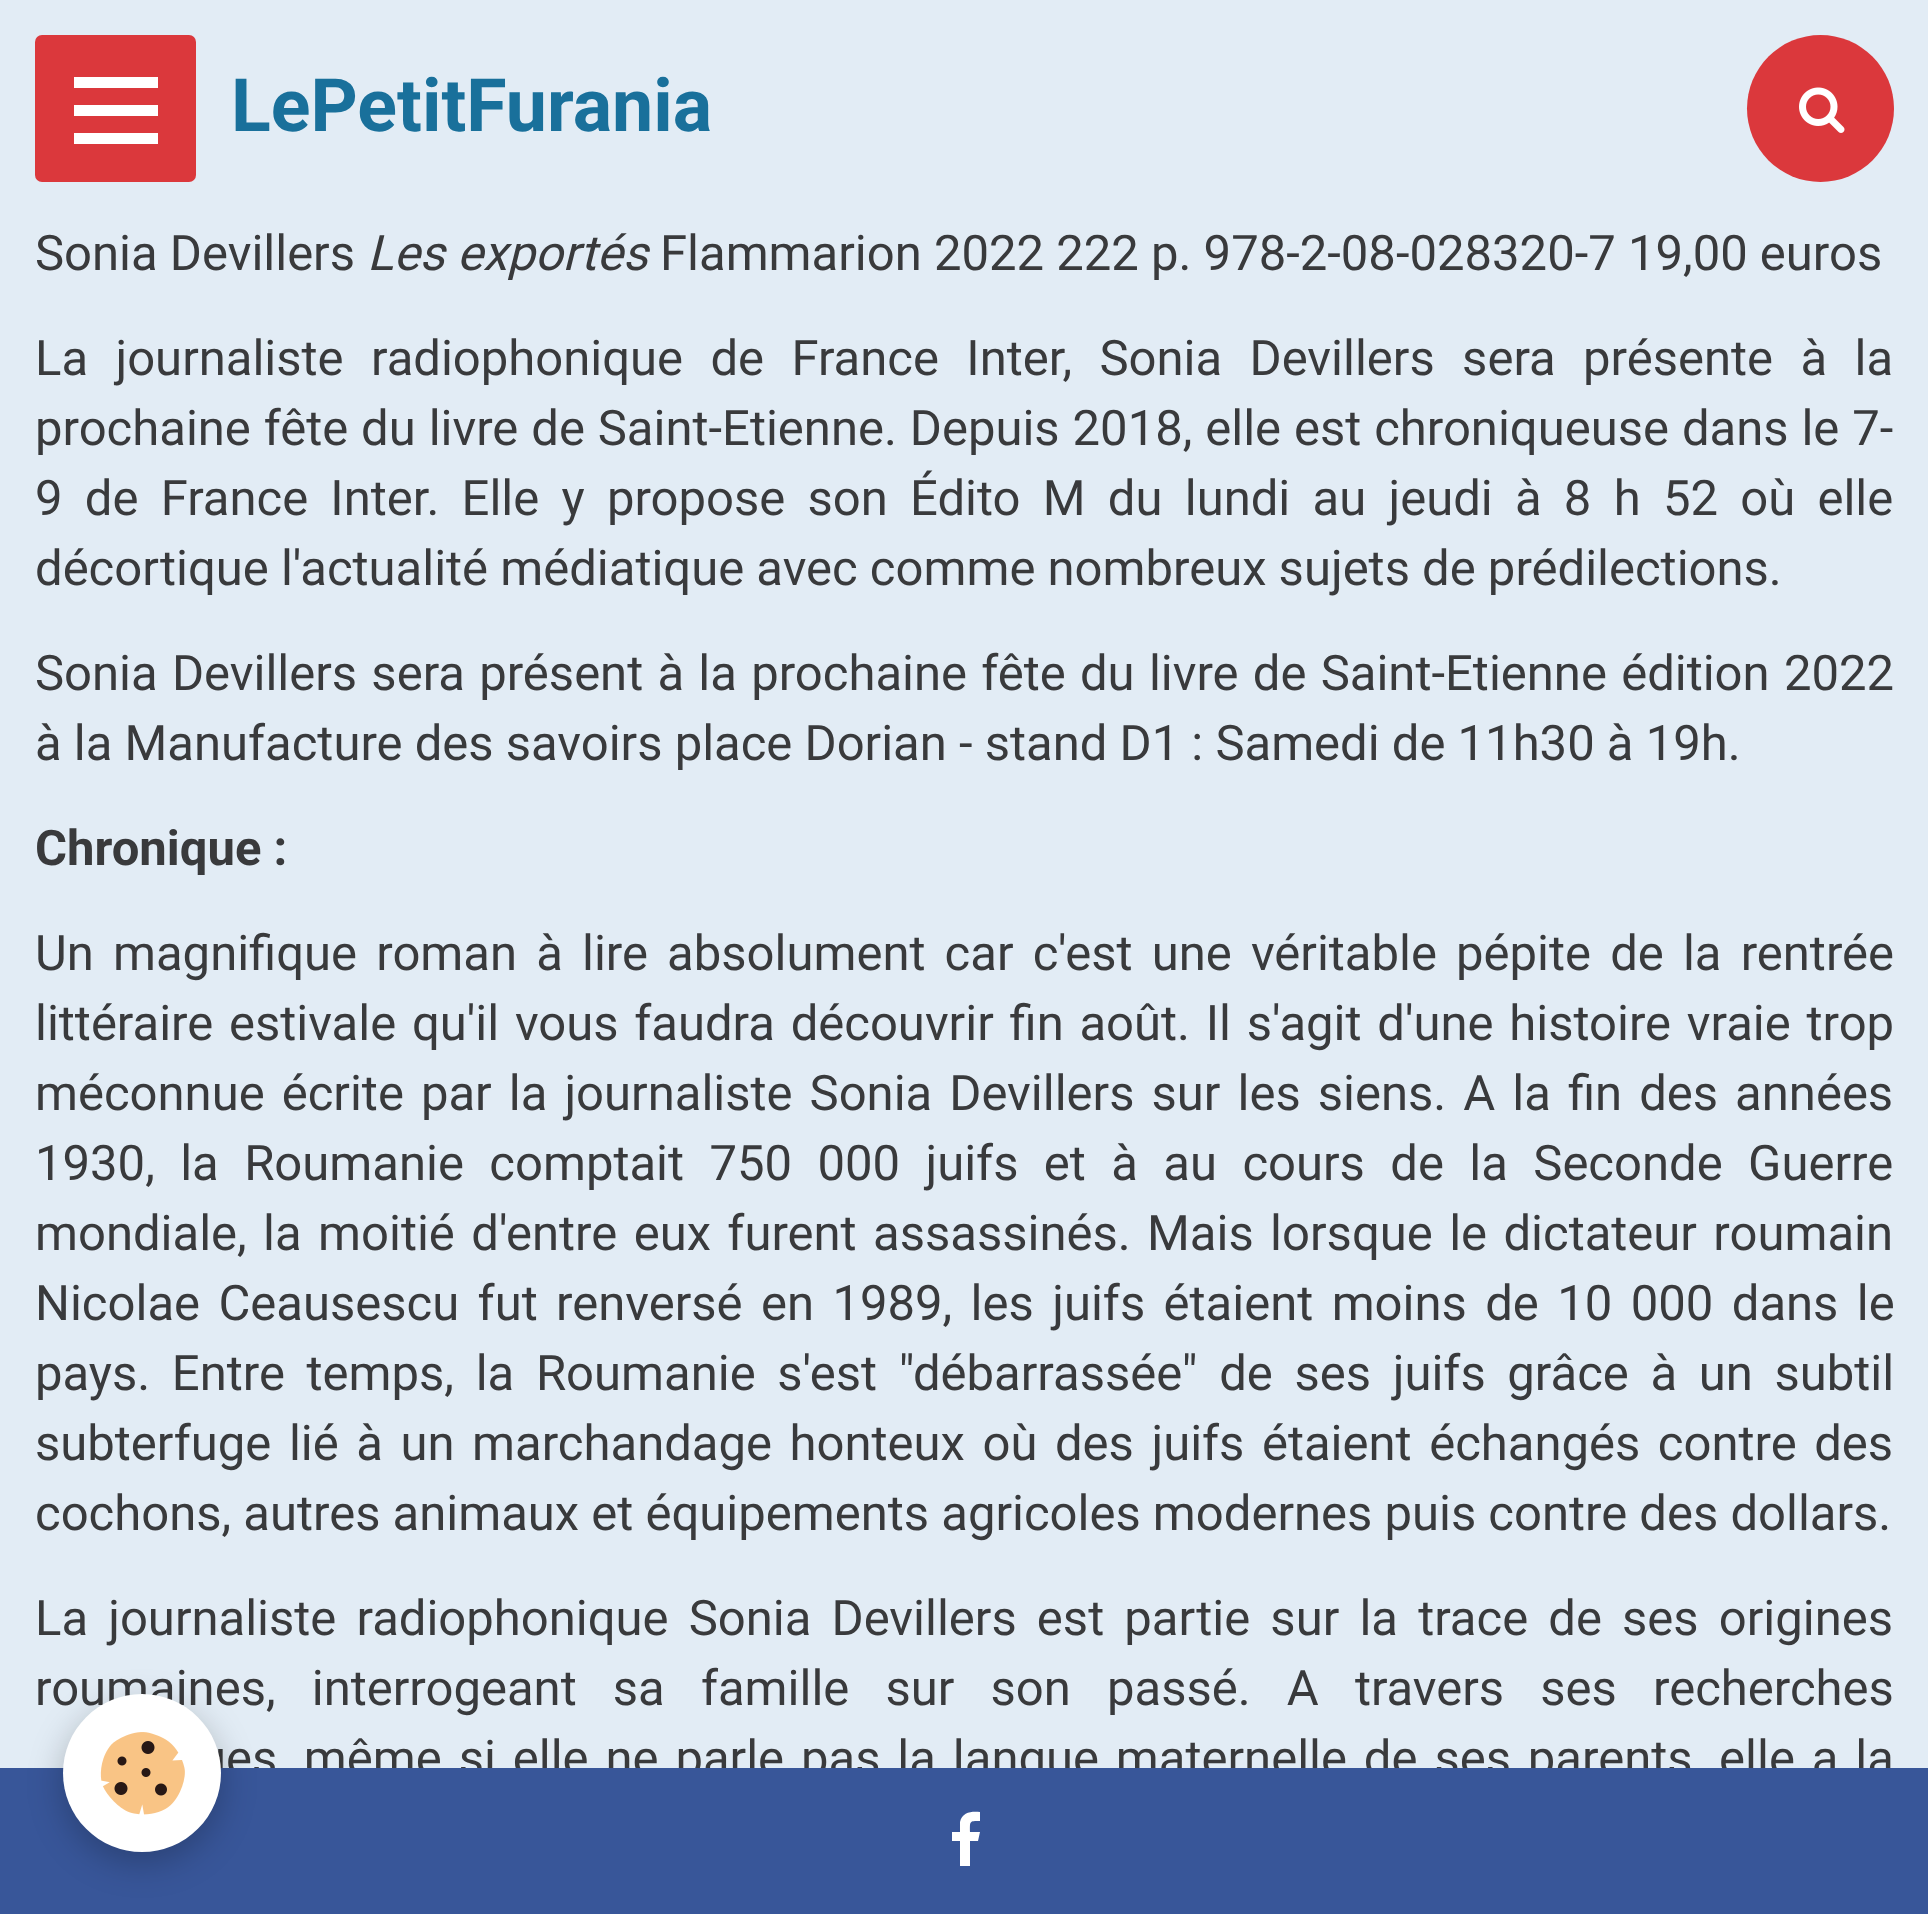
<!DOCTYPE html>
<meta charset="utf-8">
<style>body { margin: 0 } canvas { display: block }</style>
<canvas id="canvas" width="1928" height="1914"></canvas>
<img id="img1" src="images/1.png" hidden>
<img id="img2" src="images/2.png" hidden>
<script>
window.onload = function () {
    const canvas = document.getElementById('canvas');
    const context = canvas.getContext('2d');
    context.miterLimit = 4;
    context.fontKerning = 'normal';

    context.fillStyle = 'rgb(226, 236, 245)';
    context.fillRect(0, 0, 1928, 1914);
    context.fillStyle = 'rgb(219, 56, 60)';
    context.beginPath();
    context.roundRect(35, 35, 161, 147, 7);
    context.fill();
    context.fillStyle = 'rgb(255, 255, 255)';
    context.fillRect(74, 105, 84, 11);
    context.fillRect(74, 77, 84, 11);
    context.fillRect(74, 133, 84, 11);
    context.fillStyle = 'rgb(219, 56, 60)';
    context.beginPath();
    context.arc(1820.5, 108.5, 73.5, 0, 2 * Math.PI);
    context.fill();
    context.drawImage(document.getElementById('img1'), 1799, 87, 46, 46);
    context.font = 'bold 73.5px Roboto';
    context.fillStyle = 'rgb(25, 112, 155)';
    context.fillText('LePetitFurania', 231, 131);
    context.font = '49px Roboto';
    context.fillStyle = 'rgb(57, 58, 60)';
    context.fillText('Sonia Devillers', 35, 270);
    context.font = 'italic 49px Roboto';
    context.fillText('Les exportés', 367, 270);
    context.font = '49px Roboto';
    context.fillText('Flammarion 2022 222 p. 978-2-08-028320-7 19,00 euros', 660, 270);
    context.wordSpacing = '15.25px';
    context.fillText('La journaliste radiophonique de France Inter, Sonia Devillers sera présente à la', 35, 375);
    context.wordSpacing = '0.75px';
    context.fillText('prochaine fête du livre de Saint-Etienne. Depuis 2018, elle est chroniqueuse dans le 7-', 35, 445);
    context.wordSpacing = '10.1px';
    context.fillText('9 de France Inter. Elle y propose son Édito M du lundi au jeudi à 8 h 52 où elle', 35, 515);
    context.wordSpacing = '0px';
    context.fillText('décortique l\'actualité médiatique avec comme nombreux sujets de prédilections.', 35, 585);
    context.wordSpacing = '2.1px';
    context.fillText('Sonia Devillers sera présent à la prochaine fête du livre de Saint-Etienne édition 2022', 35, 690);
    context.wordSpacing = '0px';
    context.fillText('à la Manufacture des savoirs place Dorian - stand D1 : Samedi de 11h30 à 19h.', 35, 760);
    context.font = 'bold 49px Roboto';
    context.fillText('Chronique :', 35, 865);
    context.wordSpacing = '7px';
    context.font = '49px Roboto';
    context.fillText('Un magnifique roman à lire absolument car c\'est une véritable pépite de la rentrée', 35, 970);
    context.wordSpacing = '3.6px';
    context.fillText('littéraire estivale qu\'il vous faudra découvrir fin août. Il s\'agit d\'une histoire vraie trop', 35, 1040);
    context.wordSpacing = '4.9px';
    context.fillText('méconnue écrite par la journaliste Sonia Devillers sur les siens. A la fin des années', 35, 1110);
    context.wordSpacing = '13.25px';
    context.fillText('1930, la Roumanie comptait 750 000 juifs et à au cours de la Seconde Guerre', 35, 1180);
    context.wordSpacing = '4.25px';
    context.fillText('mondiale, la moitié d\'entre eux furent assassinés. Mais lorsque le dictateur roumain', 35, 1250);
    context.wordSpacing = '6.25px';
    context.fillText('Nicolae Ceausescu fut renversé en 1989, les juifs étaient moins de 10 000 dans le', 35, 1320);
    context.wordSpacing = '9.5px';
    context.fillText('pays. Entre temps, la Roumanie s\'est "débarrassée" de ses juifs grâce à un subtil', 35, 1390);
    context.wordSpacing = '5.4px';
    context.fillText('subterfuge lié à un marchandage honteux où des juifs étaient échangés contre des', 35, 1460);
    context.wordSpacing = '0px';
    context.fillText('cochons, autres animaux et équipements agricoles modernes puis contre des dollars.', 35, 1530);
    context.wordSpacing = '8px';
    context.fillText('La journaliste radiophonique Sonia Devillers est partie sur la trace de ses origines', 35, 1635);
    context.wordSpacing = '24px';
    context.fillText('roumaines, interrogeant sa famille sur son passé. A travers ses recherches', 35, 1705);
    context.wordSpacing = '4.75px';
    context.fillText('ues, même si elle ne parle pas la langue maternelle de ses parents, elle a la', 199, 1775);
    context.fillStyle = 'rgb(56, 86, 153)';
    context.fillRect(0, 1768, 1928, 146);
    context.fillStyle = 'rgba(0, 0, 0, 0.24)';
    context.filter = 'blur(17.5px)';
    context.beginPath();
    context.roundRect(63, 1705, 158, 157, 78.5);
    context.fill();
    context.filter = 'none';
    context.fillStyle = 'rgb(255, 255, 255)';
    context.beginPath();
    context.arc(142, 1773, 79, 0, 2 * Math.PI);
    context.fill();
    context.drawImage(document.getElementById('img2'), 100, 1732, 85, 83);
    context.beginPath();
    context.moveTo(980, 1812);
    context.lineTo(980, 1821);
    context.bezierCurveTo(969, 1821, 970, 1821, 970, 1832);
    context.lineTo(980, 1832);
    context.lineTo(978, 1841);
    context.lineTo(970, 1841);
    context.lineTo(970, 1866);
    context.lineTo(960, 1866);
    context.lineTo(960, 1841);
    context.lineTo(952, 1841);
    context.lineTo(952, 1832);
    context.lineTo(960, 1832);
    context.lineTo(960, 1822);
    context.bezierCurveTo(962, 1812, 972, 1811, 980, 1812);
    context.closePath();
    context.fill();
};
</script>
